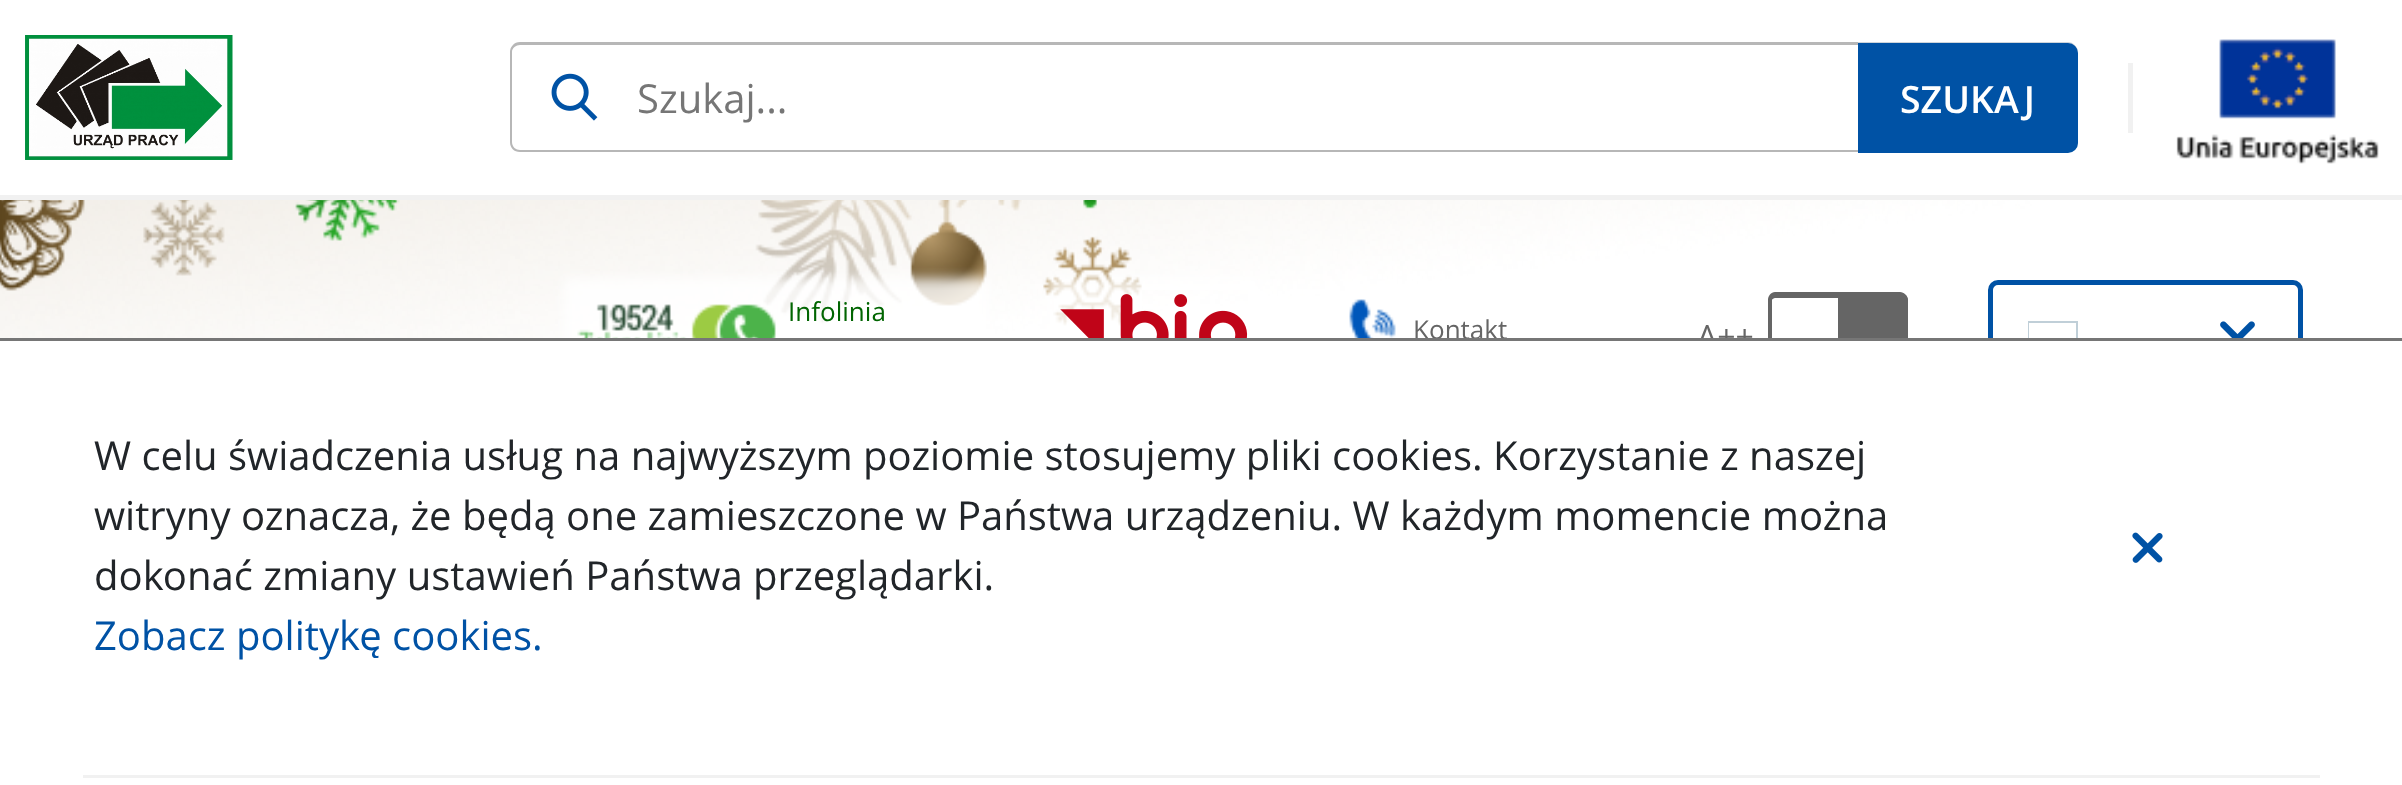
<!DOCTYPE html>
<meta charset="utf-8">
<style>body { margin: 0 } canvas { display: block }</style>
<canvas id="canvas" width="2402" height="785"></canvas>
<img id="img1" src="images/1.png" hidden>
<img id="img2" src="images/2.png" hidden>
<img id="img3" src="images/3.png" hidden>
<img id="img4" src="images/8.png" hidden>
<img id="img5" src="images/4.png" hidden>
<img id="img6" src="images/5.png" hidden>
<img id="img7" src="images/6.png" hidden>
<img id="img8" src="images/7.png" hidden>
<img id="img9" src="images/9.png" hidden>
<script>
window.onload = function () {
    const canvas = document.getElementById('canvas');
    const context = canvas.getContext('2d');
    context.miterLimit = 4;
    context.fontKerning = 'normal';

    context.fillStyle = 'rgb(255, 255, 255)';
    context.fillRect(0, 0, 2402, 785);
    context.fillStyle = 'rgb(241, 241, 241)';
    context.fillRect(0, 195, 2402, 5);
    context.drawImage(document.getElementById('img1'), 25, 35, 208, 125);
    context.drawImage(document.getElementById('img2'), 551, 73, 47, 48);
    context.fillStyle = 'rgb(183, 183, 183)';
    context.beginPath();
    context.moveTo(520, 42);
    context.lineTo(1858, 42);
    context.lineTo(1858, 152);
    context.lineTo(520, 152);
    context.bezierCurveTo(514, 152, 510, 148, 510, 142);
    context.lineTo(510, 52);
    context.bezierCurveTo(510, 47, 514, 42, 520, 42);
    context.closePath();
    context.moveTo(520, 45);
    context.lineTo(1858, 45);
    context.lineTo(1858, 150);
    context.lineTo(520, 150);
    context.bezierCurveTo(516, 150, 512, 147, 512, 142);
    context.lineTo(512, 52);
    context.bezierCurveTo(512, 48, 516, 45, 520, 45);
    context.closePath();
    context.fill('evenodd');
    context.fillStyle = 'rgb(206, 212, 218)';
    context.beginPath();
    context.moveTo(1858, 42);
    context.lineTo(2068, 42);
    context.bezierCurveTo(2073, 42, 2078, 47, 2078, 52);
    context.lineTo(2078, 142);
    context.bezierCurveTo(2078, 148, 2073, 152, 2068, 152);
    context.lineTo(1858, 152);
    context.closePath();
    context.moveTo(1858, 45);
    context.lineTo(2068, 45);
    context.bezierCurveTo(2072, 45, 2075, 48, 2075, 52);
    context.lineTo(2075, 142);
    context.bezierCurveTo(2075, 147, 2072, 150, 2068, 150);
    context.lineTo(1858, 150);
    context.closePath();
    context.fill('evenodd');
    context.fillStyle = 'rgb(0, 82, 165)';
    context.beginPath();
    context.roundRect(1858, 43, 220, 110, [0, 10, 10, 0]);
    context.fill();
    context.fillStyle = 'rgb(241, 241, 241)';
    context.fillRect(2128, 63, 5, 70);
    context.drawImage(document.getElementById('img3'), 2176, 39, 203, 125);
    context.drawImage(document.getElementById('img4'), 0, 200, 2062, 138);
    context.save();
    context.beginPath();
    context.moveTo(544, 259);
    context.lineTo(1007, 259);
    context.lineTo(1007, 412);
    context.lineTo(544, 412);
    context.closePath();
    context.moveTo(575, 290);
    context.lineTo(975, 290);
    context.lineTo(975, 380);
    context.lineTo(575, 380);
    context.closePath();
    context.clip('evenodd');
    context.fillStyle = 'rgba(255, 255, 255, 0.8)';
    context.filter = 'blur(6px)';
    context.beginPath();
    context.rect(563, 278, 425, 115);
    context.fill();
    context.filter = 'none';
    context.restore();
    context.fillStyle = 'rgba(255, 255, 255, 0.8)';
    context.fillRect(575, 290, 400, 48);
    context.drawImage(document.getElementById('img5'), 577, 304, 199, 34);
    context.save();
    context.beginPath();
    context.moveTo(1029, 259);
    context.lineTo(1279, 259);
    context.lineTo(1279, 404);
    context.lineTo(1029, 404);
    context.closePath();
    context.moveTo(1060, 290);
    context.lineTo(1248, 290);
    context.lineTo(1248, 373);
    context.lineTo(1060, 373);
    context.closePath();
    context.clip('evenodd');
    context.filter = 'blur(6px)';
    context.beginPath();
    context.rect(1048, 278, 212, 107);
    context.fill();
    context.filter = 'none';
    context.restore();
    context.fillRect(1060, 290, 82, 46);
    context.drawImage(document.getElementById('img6'), 1060, 294, 188, 44);
    context.fillStyle = 'rgb(101, 101, 101)';
    context.beginPath();
    context.moveTo(1775, 292);
    context.lineTo(1838, 292);
    context.lineTo(1838, 378);
    context.lineTo(1775, 378);
    context.bezierCurveTo(1771, 378, 1768, 374, 1768, 370);
    context.lineTo(1768, 300);
    context.bezierCurveTo(1768, 296, 1771, 292, 1775, 292);
    context.closePath();
    context.moveTo(1775, 298);
    context.lineTo(1838, 298);
    context.lineTo(1838, 372);
    context.lineTo(1775, 372);
    context.bezierCurveTo(1774, 372, 1772, 371, 1772, 370);
    context.lineTo(1772, 300);
    context.bezierCurveTo(1772, 299, 1774, 298, 1775, 298);
    context.closePath();
    context.fill('evenodd');
    context.beginPath();
    context.roundRect(1838, 293, 70, 85, [0, 8, 8, 0]);
    context.fill();
    context.beginPath();
    context.moveTo(1838, 292);
    context.lineTo(1900, 292);
    context.bezierCurveTo(1904, 292, 1908, 296, 1908, 300);
    context.lineTo(1908, 370);
    context.bezierCurveTo(1908, 374, 1904, 378, 1900, 378);
    context.lineTo(1838, 378);
    context.closePath();
    context.moveTo(1838, 298);
    context.lineTo(1900, 298);
    context.bezierCurveTo(1901, 298, 1902, 299, 1902, 300);
    context.lineTo(1902, 370);
    context.bezierCurveTo(1902, 371, 1901, 372, 1900, 372);
    context.lineTo(1838, 372);
    context.closePath();
    context.fill('evenodd');
    context.beginPath();
    context.roundRect(1990.5, 282.5, 310, 105, 7.5);
    context.strokeStyle = 'rgb(0, 82, 165)';
    context.lineWidth = 5;
    context.stroke();
    context.fillStyle = 'rgb(192, 207, 216)';
    context.fillRect(2028, 321, 50, 17);
    context.drawImage(document.getElementById('img7'), 2220, 321, 35, 17);
    context.fillStyle = 'rgb(255, 255, 255)';
    context.fillRect(2029, 323, 47, 15);
    context.drawImage(document.getElementById('img8'), 1349, 299, 47, 39);
    context.fillStyle = 'rgb(241, 241, 241)';
    context.fillRect(83, 775, 2237, 3);
    context.drawImage(document.getElementById('img9'), 2132, 532, 31, 31);
    context.font = '40px Open Sans';
    context.fillStyle = 'rgb(118, 118, 118)';
    context.fillText('Szukaj...', 637, 113);
    context.font = '600 37.5px Open Sans';
    context.fillStyle = 'rgb(255, 255, 255)';
    context.fillText('SZUKAJ', 1900, 113);
    context.font = '26px Open Sans';
    context.fillStyle = 'rgb(1, 101, 1)';
    context.fillText('Infolinia', 788, 321);
    context.fillStyle = 'rgb(101, 101, 101)';
    context.fillText('Kontakt', 1413, 339);
    context.font = '32px Open Sans';
    context.fillText('A++', 1697, 348);
    context.fillStyle = 'rgb(255, 255, 255)';
    context.fillRect(1697, 341, 606, 49);
    context.fillStyle = 'rgb(118, 118, 118)';
    context.fillRect(0, 338, 2402, 3);
    context.font = '40px Open Sans';
    context.fillStyle = 'rgb(33, 37, 41)';
    context.fillText('W celu świadczenia usług na najwyższym poziomie stosujemy pliki cookies. Korzystanie z naszej', 94, 470);
    context.fillText('witryny oznacza, że będą one zamieszczone w Państwa urządzeniu. W każdym momencie można', 94, 530);
    context.fillText('dokonać zmiany ustawień Państwa przeglądarki.', 94, 590);
    context.fillStyle = 'rgb(0, 82, 165)';
    context.fillText('Zobacz politykę cookies.', 94, 650);
};
</script>
